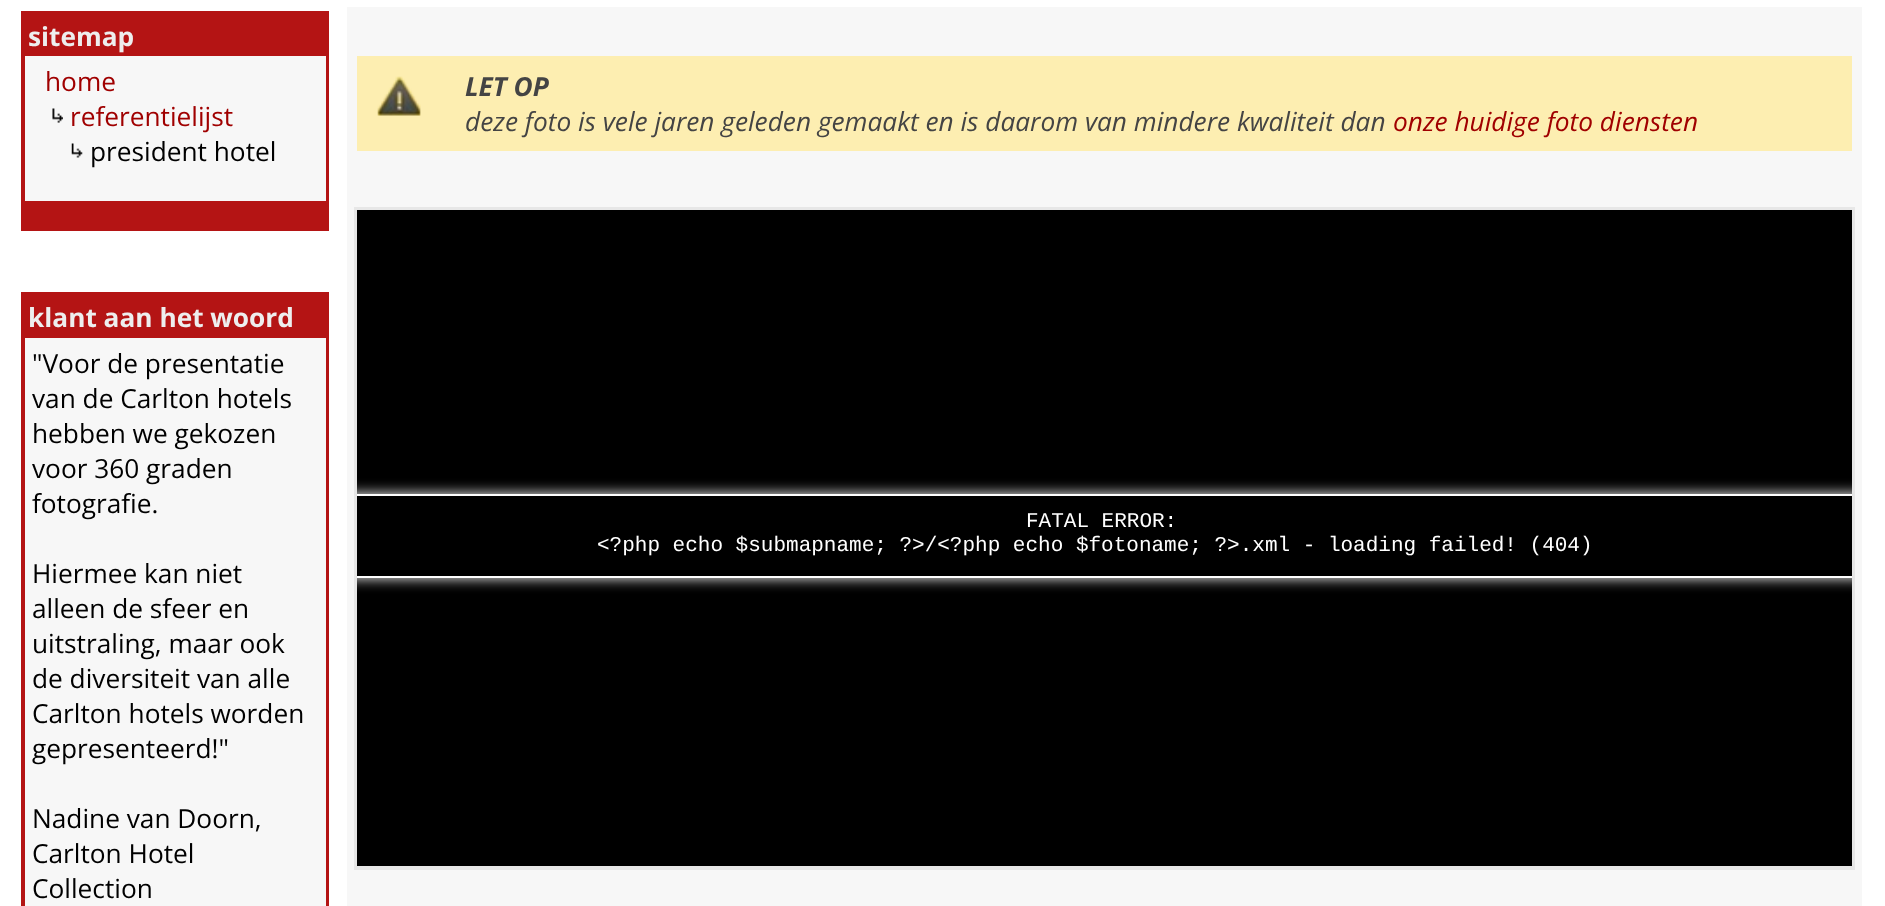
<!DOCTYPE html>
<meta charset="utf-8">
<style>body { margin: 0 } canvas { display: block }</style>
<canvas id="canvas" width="1885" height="906"></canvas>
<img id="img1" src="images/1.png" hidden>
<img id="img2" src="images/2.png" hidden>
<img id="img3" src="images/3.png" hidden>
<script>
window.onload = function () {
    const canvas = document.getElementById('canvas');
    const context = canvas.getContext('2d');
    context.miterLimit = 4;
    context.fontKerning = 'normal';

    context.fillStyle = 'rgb(255, 255, 255)';
    context.fillRect(0, 0, 1885, 906);
    context.fillStyle = 'rgb(180, 20, 20)';
    context.fillRect(21, 11, 308, 220);
    context.fillStyle = 'rgb(247, 247, 247)';
    context.fillRect(25, 56, 301, 145);
    context.drawImage(document.getElementById('img1'), 52, 108, 11, 15);
    context.drawImage(document.getElementById('img2'), 71, 143, 12, 15);
    context.fillStyle = 'rgb(180, 20, 20)';
    context.fillRect(21, 292, 308, 614);
    context.fillStyle = 'rgb(247, 247, 247)';
    context.fillRect(25, 338, 301, 568);
    context.fillRect(347, 7, 1515, 899);
    context.fillStyle = 'rgb(253, 238, 177)';
    context.fillRect(357, 56, 1495, 95);
    context.drawImage(document.getElementById('img3'), 377, 76, 44, 40);
    context.fillStyle = 'rgb(231, 231, 231)';
    context.fillRect(354, 207, 1501, 663);
    context.fillStyle = 'rgb(0, 0, 0)';
    context.fillRect(357, 210, 1495, 656);
    context.save();
    context.beginPath();
    context.rect(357, 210, 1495, 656);
    context.clip();
    context.fillStyle = 'rgb(255, 255, 255)';
    context.filter = 'blur(7px)';
    context.beginPath();
    context.rect(317, 494, 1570, 84);
    context.fill();
    context.filter = 'none';
    context.restore();
    context.fillRect(357, 496, 1495, 80);
    context.save();
    context.beginPath();
    context.rect(357, 210, 1495, 656);
    context.clip();
    context.strokeStyle = 'rgb(255, 255, 255)';
    context.lineWidth = 2;
    context.strokeRect(318, 495, 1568, 82);
    context.restore();
    context.font = 'bold 26.25px Open Sans';
    context.fillStyle = 'rgb(238, 238, 238)';
    context.fillText('sitemap', 28, 46);
    context.font = '26.25px Open Sans';
    context.fillStyle = 'rgb(160, 0, 0)';
    context.fillText('home', 45, 91);
    context.fillText('referentielijst', 70, 126);
    context.fillStyle = 'rgb(0, 0, 0)';
    context.fillText('president hotel', 90, 161);
    context.font = 'bold 26.25px Open Sans';
    context.fillStyle = 'rgb(238, 238, 238)';
    context.fillText('klant aan het woord', 28, 327);
    context.font = '26.25px Open Sans';
    context.fillStyle = 'rgb(0, 0, 0)';
    context.fillText('"Voor de presentatie', 32, 373);
    context.fillText('van de Carlton hotels', 32, 408);
    context.fillText('hebben we gekozen', 32, 443);
    context.fillText('voor 360 graden', 32, 478);
    context.fillText('fotografie.', 32, 513);
    context.fillText('Hiermee kan niet', 32, 583);
    context.fillText('alleen de sfeer en', 32, 618);
    context.fillText('uitstraling, maar ook', 32, 653);
    context.fillText('de diversiteit van alle', 32, 688);
    context.fillText('Carlton hotels worden', 32, 723);
    context.fillText('gepresenteerd!"', 32, 758);
    context.fillText('Nadine van Doorn,', 32, 828);
    context.fillText('Carlton Hotel', 32, 863);
    context.fillText('Collection', 32, 898);
    context.font = 'italic bold 26.25px Open Sans';
    context.fillStyle = 'rgb(68, 68, 68)';
    context.fillText('LET OP', 465, 96);
    context.font = 'italic 26.25px Open Sans';
    context.fillText('deze foto is vele jaren geleden gemaakt en is daarom van mindere kwaliteit dan', 465, 131);
    context.fillStyle = 'rgb(160, 0, 0)';
    context.fillText('onze huidige foto diensten', 1393, 131);
    context.font = '21px Liberation Mono';
    context.fillStyle = 'rgb(255, 255, 255)';
    context.fillText('FATAL ERROR:', 1026, 527);
    context.fillText('<?php echo $submapname; ?>/<?php echo $fotoname; ?>.xml - loading failed! (404)', 597, 551);
};
</script>
